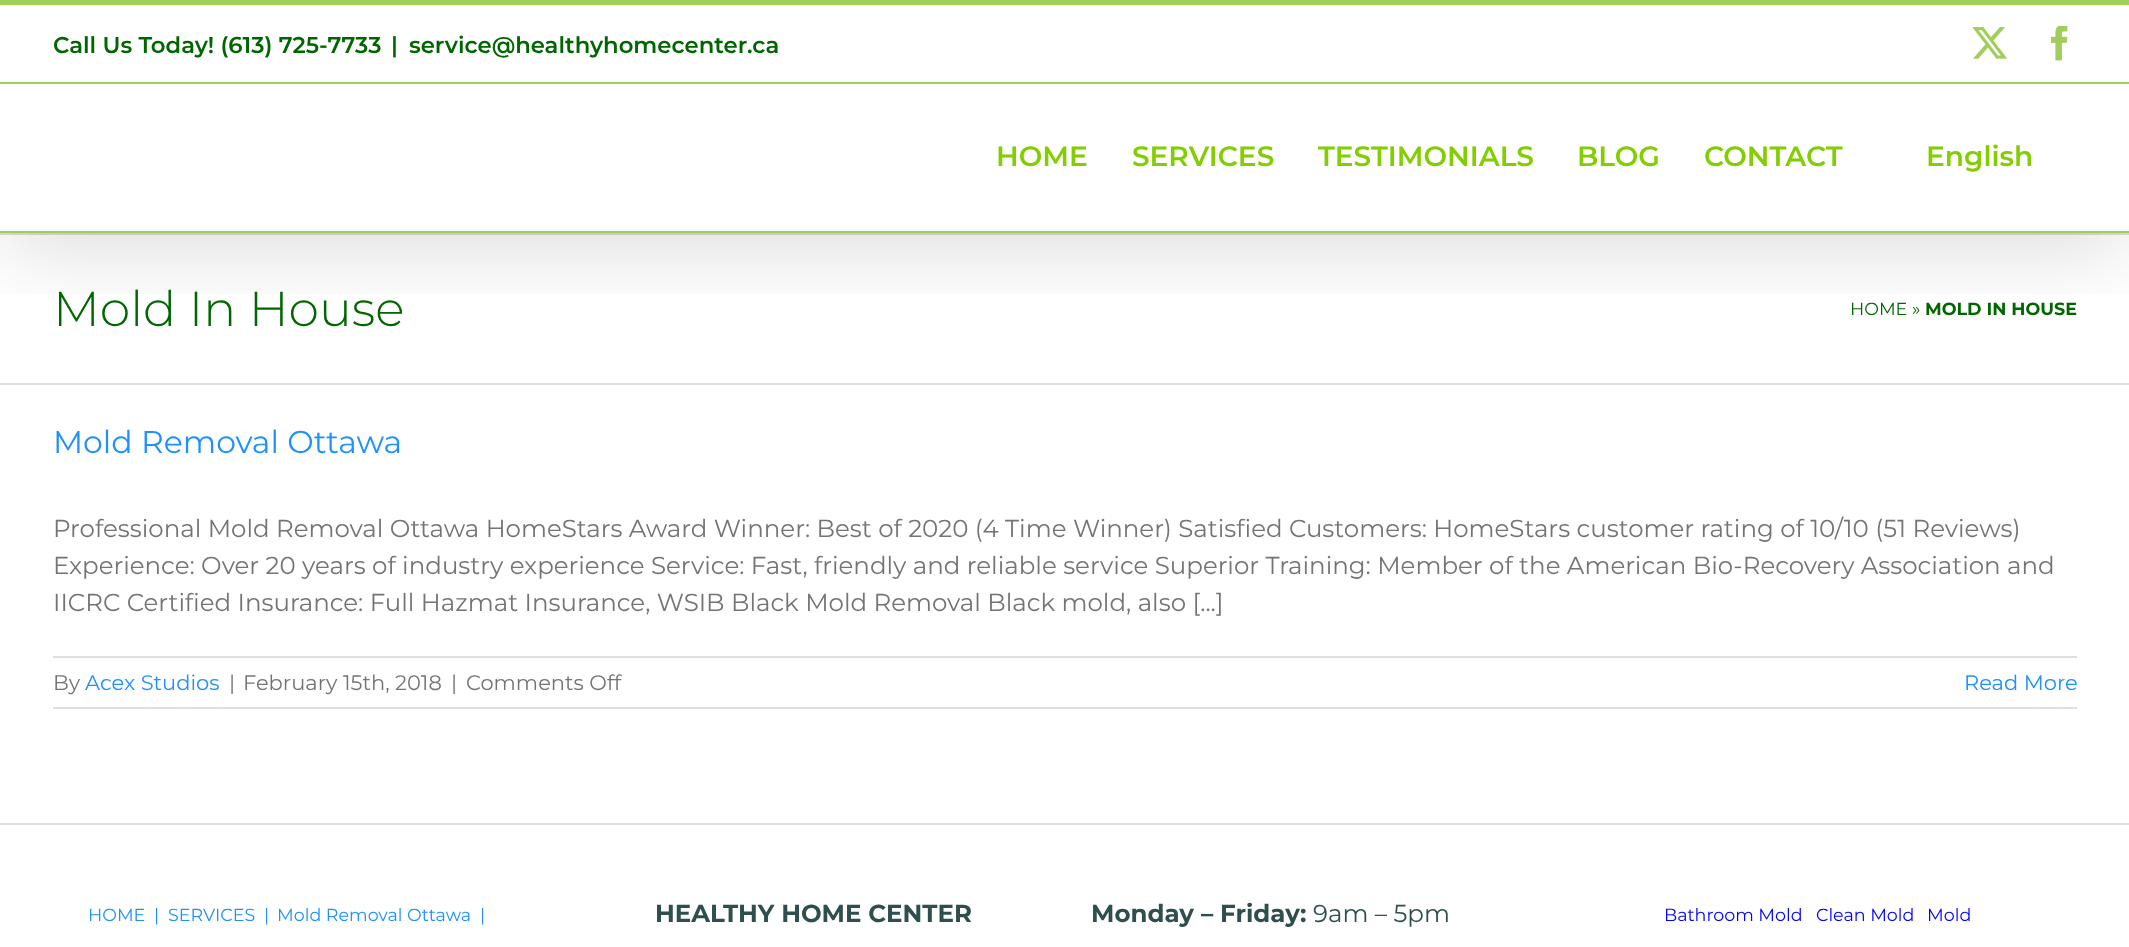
<!DOCTYPE html>
<meta charset="utf-8">
<style>body { margin: 0 } canvas { display: block }</style>
<canvas id="canvas" width="2129" height="947"></canvas>
<img id="img1" src="images/1.png" hidden>
<img id="img2" src="images/2.png" hidden>
<script>
window.onload = function () {
    const canvas = document.getElementById('canvas');
    const context = canvas.getContext('2d');
    context.miterLimit = 4;
    context.fontKerning = 'normal';

    context.fillStyle = 'rgb(255, 255, 255)';
    context.fillRect(0, 0, 2129, 947);
    context.fillStyle = 'rgb(221, 221, 221)';
    context.fillRect(0, 233, 2129, 2);
    context.save();
    context.beginPath();
    context.rect(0, 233, 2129, 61);
    context.clip();
    context.fillStyle = 'rgba(0, 0, 0, 0.14)';
    context.filter = 'blur(44px)';
    context.beginPath();
    context.rect(4, 21, 2122, 226);
    context.fill();
    context.filter = 'none';
    context.restore();
    context.fillStyle = 'rgb(160, 206, 91)';
    context.fillRect(0, 0, 2129, 5);
    context.fillRect(0, 82, 2129, 2);
    context.drawImage(document.getElementById('img1'), 1972, 27, 36, 32);
    context.drawImage(document.getElementById('img2'), 2051, 26, 17, 35);
    context.fillRect(0, 231, 2129, 2);
    context.fillStyle = 'rgb(221, 221, 221)';
    context.fillRect(0, 383, 2129, 2);
    context.fillStyle = 'rgb(224, 222, 222)';
    context.fillRect(53, 656, 2024, 2);
    context.fillRect(53, 707, 2024, 2);
    context.fillStyle = 'rgb(221, 221, 221)';
    context.fillRect(0, 823, 2129, 2);
    context.font = '600 22.75px Montserrat';
    context.fillStyle = 'rgb(0, 102, 0)';
    context.fillText('Call Us Today! (613) 725-7733', 53, 53);
    context.fillText('|', 391, 53);
    context.fillText('service@healthyhomecenter.ca', 409, 53);
    context.font = '600 28px Montserrat';
    context.fillStyle = 'rgb(130, 206, 0)';
    context.fillText('HOME', 996, 166);
    context.fillText('SERVICES', 1132, 166);
    context.fillText('TESTIMONIALS', 1318, 166);
    context.fillText('BLOG', 1577, 166);
    context.fillText('CONTACT', 1704, 166);
    context.fillText('English', 1926, 166);
    context.font = '300 49px Montserrat';
    context.fillStyle = 'rgb(0, 102, 0)';
    context.fillText('Mold In House', 53, 326);
    context.font = '17.5px Montserrat';
    context.fillText('HOME »', 1850, 315);
    context.font = 'bold 17.5px Montserrat';
    context.fillText('MOLD IN HOUSE', 1925, 315);
    context.font = '31.5px Montserrat';
    context.fillStyle = 'rgb(30, 144, 255)';
    context.fillText('Mold Removal Ottawa', 53, 453);
    context.font = '24.5px Montserrat';
    context.fillStyle = 'rgb(116, 116, 116)';
    context.fillText('Professional Mold Removal Ottawa HomeStars Award Winner: Best of 2020 (4 Time Winner) Satisfied Customers: HomeStars customer rating of 10/10 (51 Reviews)', 53, 537);
    context.fillText('Experience: Over 20 years of industry experience Service: Fast, friendly and reliable service Superior Training: Member of the American Bio-Recovery Association and', 53, 574);
    context.fillText('IICRC Certified Insurance: Full Hazmat Insurance, WSIB Black Mold Removal Black mold, also [...]', 53, 611);
    context.font = '21px Montserrat';
    context.fillText('By', 53, 690);
    context.fillStyle = 'rgb(30, 144, 255)';
    context.fillText('Acex Studios', 85, 690);
    context.fillStyle = 'rgb(116, 116, 116)';
    context.fillText('|', 229, 690);
    context.fillText('February 15th, 2018', 243, 690);
    context.fillText('|', 451, 690);
    context.fillText('Comments Off', 466, 690);
    context.fillStyle = 'rgb(30, 144, 255)';
    context.fillText('Read More', 1964, 690);
    context.font = '17.5px Montserrat';
    context.fillText('HOME', 88, 921);
    context.fillText('|', 154, 921);
    context.fillText('SERVICES', 168, 921);
    context.fillText('|', 264, 921);
    context.fillText('Mold Removal Ottawa', 277, 921);
    context.fillText('|', 480, 921);
    context.font = 'bold 24.5px Montserrat';
    context.fillStyle = 'rgb(47, 79, 79)';
    context.fillText('HEALTHY HOME CENTER', 655, 922);
    context.fillText('Monday – Friday:', 1091, 922);
    context.font = '24.5px Montserrat';
    context.fillText('9am – 5pm', 1313, 922);
    context.font = '17.5px Montserrat';
    context.fillStyle = 'rgb(0, 0, 255)';
    context.fillText('Bathroom Mold', 1664, 921);
    context.fillText('Clean Mold', 1816, 921);
    context.fillText('Mold', 1927, 921);
};
</script>
